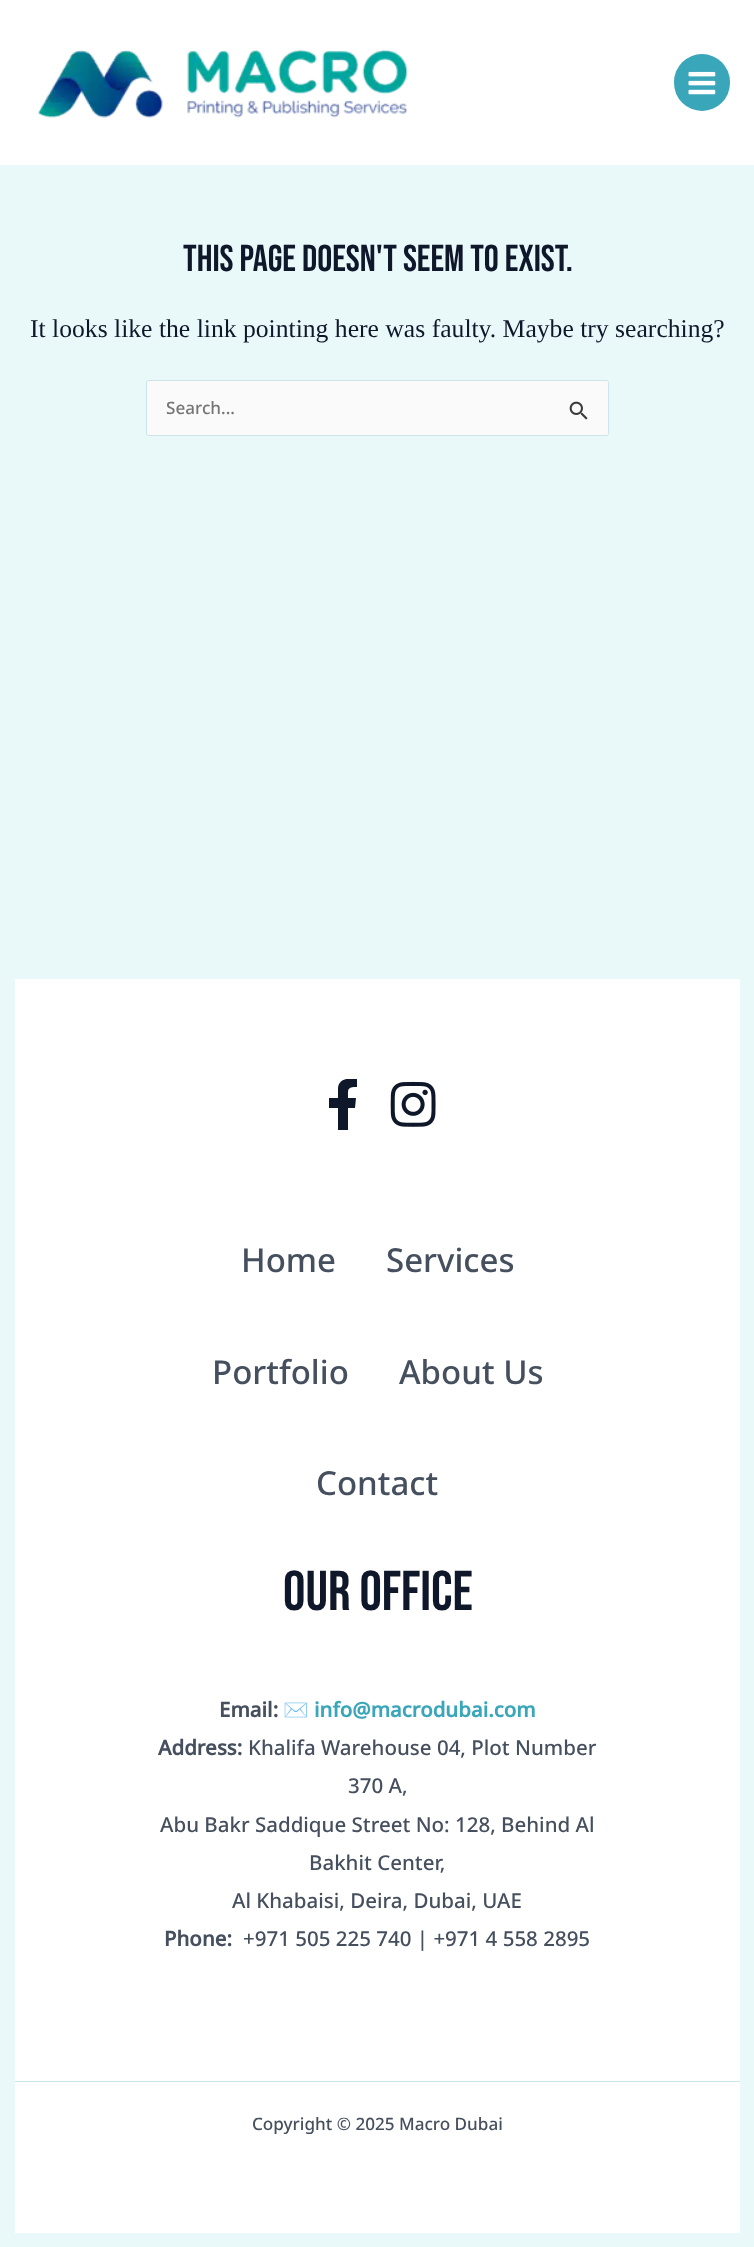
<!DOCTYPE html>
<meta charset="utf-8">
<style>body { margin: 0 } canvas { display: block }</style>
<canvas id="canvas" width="754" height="2247"></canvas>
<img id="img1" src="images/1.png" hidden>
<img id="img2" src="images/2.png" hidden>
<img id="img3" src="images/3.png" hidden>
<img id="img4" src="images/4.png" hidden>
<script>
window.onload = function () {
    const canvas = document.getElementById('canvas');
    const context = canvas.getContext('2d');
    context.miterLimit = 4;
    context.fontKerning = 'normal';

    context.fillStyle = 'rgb(233, 248, 249)';
    context.fillRect(0, 0, 754, 2247);
    context.fillStyle = 'rgb(255, 255, 255)';
    context.fillRect(0, 0, 754, 165);
    context.drawImage(document.getElementById('img1'), 37, 50, 371, 68);
    context.fillStyle = 'rgb(58, 166, 185)';
    context.beginPath();
    context.roundRect(674, 54, 56, 57, 28);
    context.fill();
    context.drawImage(document.getElementById('img2'), 688, 71, 28, 24);
    context.fillStyle = 'rgb(250, 250, 250)';
    context.beginPath();
    context.roundRect(146.5, 380.5, 462, 55, 2);
    context.fill();
    context.strokeStyle = 'rgb(202, 230, 232)';
    context.stroke();
    context.drawImage(document.getElementById('img3'), 569, 401, 19, 19);
    context.fillStyle = 'rgb(255, 255, 255)';
    context.fillRect(15, 979, 725, 1254);
    context.save();
    context.beginPath();
    context.rect(318, 1079, 51, 51);
    context.clip();
    context.fillStyle = 'rgb(15, 23, 42)';
    context.beginPath();
    context.moveTo(355, 1108);
    context.lineTo(356, 1098);
    context.lineTo(348, 1098);
    context.bezierCurveTo(348, 1089, 347, 1087, 357, 1087);
    context.lineTo(357, 1079);
    context.bezierCurveTo(349, 1078, 339, 1078, 338, 1088);
    context.lineTo(338, 1098);
    context.lineTo(329, 1098);
    context.lineTo(329, 1108);
    context.lineTo(338, 1108);
    context.lineTo(338, 1130);
    context.lineTo(348, 1130);
    context.lineTo(348, 1108);
    context.closePath();
    context.fill();
    context.restore();
    context.drawImage(document.getElementById('img4'), 390, 1081, 46, 46);
    context.fillStyle = 'rgb(202, 230, 232)';
    context.fillRect(15, 2081, 725, 1);
    context.font = '37.5px Bebas Neue';
    context.fillStyle = 'rgb(15, 23, 42)';
    context.fillText('This page doesn\'t seem to exist.', 183, 271);
    context.font = '25.65px Liberation Serif';
    context.fillText('It looks like the link pointing here was faulty. Maybe try searching?', 30, 337);
    context.font = '500 17.1px Noto Sans';
    context.fillStyle = 'rgb(117, 117, 117)';
    context.fillText('Search...', 166, 414);
    context.font = '500 33px Noto Sans';
    context.fillStyle = 'rgb(69, 79, 94)';
    context.fillText('Home', 241, 1272);
    context.fillText('Services', 386, 1272);
    context.fillText('Portfolio', 212, 1384);
    context.fillText('About Us', 399, 1384);
    context.fillText('Contact', 316, 1495);
    context.font = '56px Bebas Neue';
    context.fillStyle = 'rgb(15, 23, 42)';
    context.fillText('Our Office', 283, 1610);
    context.font = 'bold 20.5px Noto Sans';
    context.fillStyle = 'rgb(69, 79, 94)';
    context.fillText('Email:', 219, 1717);
    context.font = 'bold 20.5px Noto Color Emoji';
    context.fillText('✉️', 283, 1717);
    context.font = 'bold 20.5px Noto Sans';
    context.fillStyle = 'rgb(58, 166, 185)';
    context.fillText('info@macrodubai.com', 314, 1717);
    context.fillStyle = 'rgb(69, 79, 94)';
    context.fillText('Address:', 158, 1755);
    context.font = '500 20.5px Noto Sans';
    context.fillText('Khalifa Warehouse 04, Plot Number', 248, 1755);
    context.fillText('370 A,', 348, 1793);
    context.fillText('Abu Bakr Saddique Street No: 128, Behind Al', 160, 1832);
    context.fillText('Bakhit Center,', 309, 1870);
    context.fillText('Al Khabaisi, Deira, Dubai, UAE', 232, 1908);
    context.font = 'bold 20.5px Noto Sans';
    context.fillText('Phone:', 164, 1946);
    context.font = '500 20.5px Noto Sans';
    context.fillText('+971 505 225 740 | +971 4 558 2895', 243, 1946);
    context.font = '500 17.1px Noto Sans';
    context.fillText('Copyright © 2025 Macro Dubai', 252, 2130);
};
</script>
